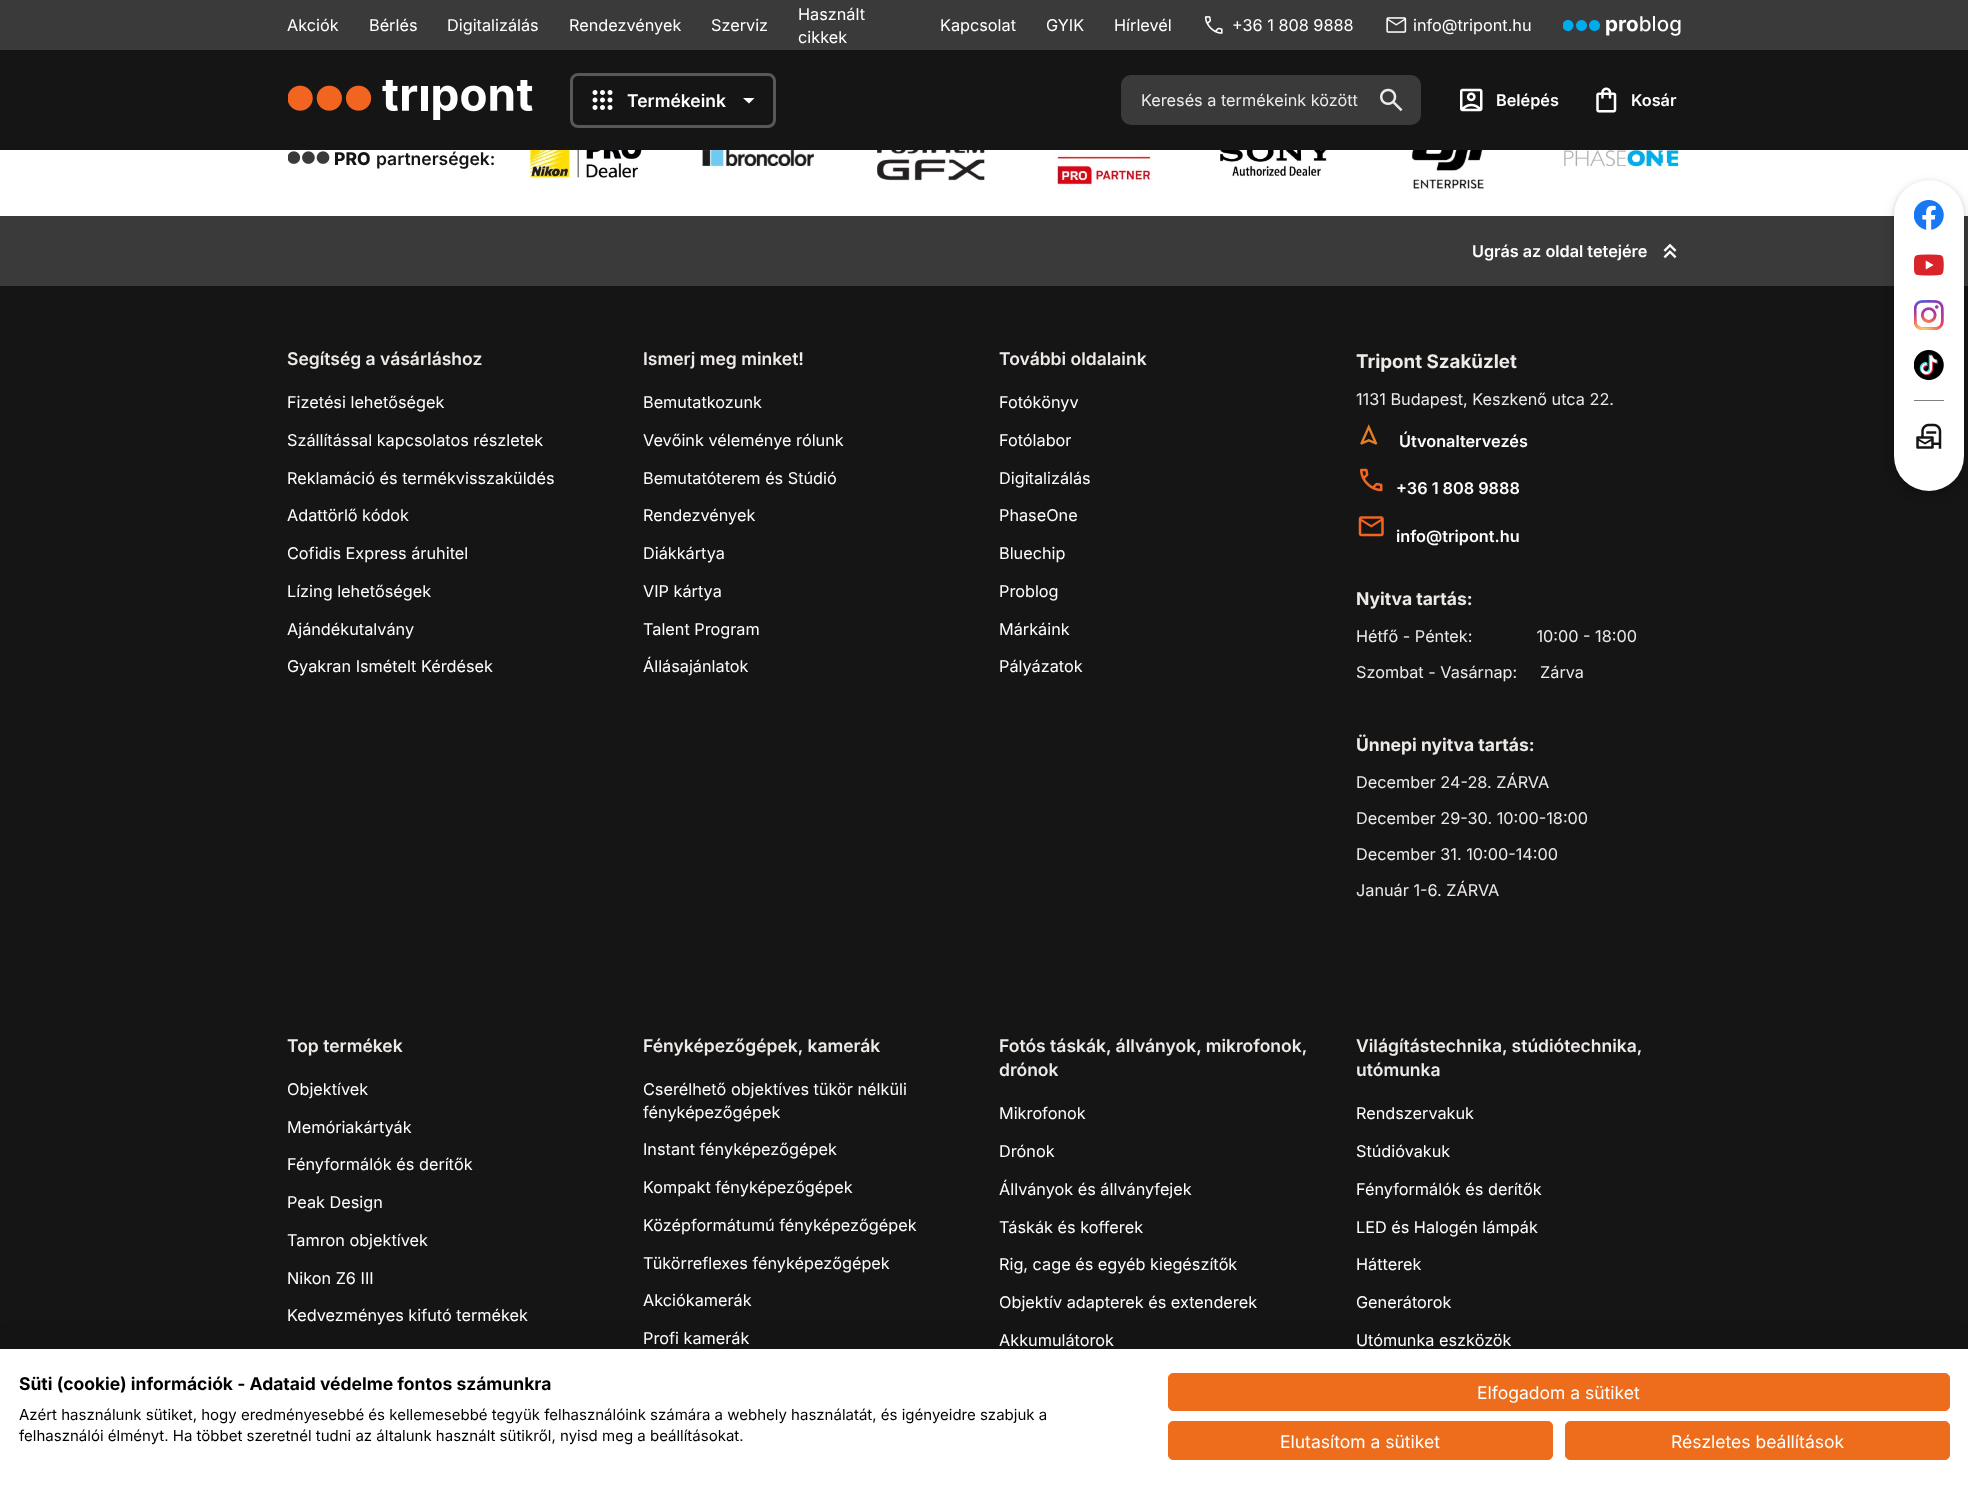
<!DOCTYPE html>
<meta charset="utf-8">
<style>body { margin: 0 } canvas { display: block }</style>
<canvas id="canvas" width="1968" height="1493"></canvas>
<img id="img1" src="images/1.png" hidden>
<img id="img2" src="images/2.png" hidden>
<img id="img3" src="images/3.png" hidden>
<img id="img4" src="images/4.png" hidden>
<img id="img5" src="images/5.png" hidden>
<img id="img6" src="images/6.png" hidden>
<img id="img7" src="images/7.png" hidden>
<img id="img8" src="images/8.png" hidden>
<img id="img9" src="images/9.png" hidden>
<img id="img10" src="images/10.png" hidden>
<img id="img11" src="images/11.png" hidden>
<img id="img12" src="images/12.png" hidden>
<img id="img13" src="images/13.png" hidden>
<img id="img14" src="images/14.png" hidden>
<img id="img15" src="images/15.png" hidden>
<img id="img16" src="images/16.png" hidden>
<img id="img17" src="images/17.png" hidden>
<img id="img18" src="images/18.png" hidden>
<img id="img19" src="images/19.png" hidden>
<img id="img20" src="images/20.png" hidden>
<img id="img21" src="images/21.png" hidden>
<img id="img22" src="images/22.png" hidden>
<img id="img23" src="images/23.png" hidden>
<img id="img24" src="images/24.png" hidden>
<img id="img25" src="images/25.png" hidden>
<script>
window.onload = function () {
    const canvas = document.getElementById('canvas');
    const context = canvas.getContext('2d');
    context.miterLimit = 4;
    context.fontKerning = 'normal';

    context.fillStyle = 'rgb(255, 255, 255)';
    context.fillRect(0, 0, 1968, 1493);
    context.fillStyle = 'rgb(58, 58, 58)';
    context.fillRect(0, 0, 1968, 50);
    context.drawImage(document.getElementById('img1'), 1204, 16, 19, 18);
    context.drawImage(document.getElementById('img2'), 1386, 17, 21, 16);
    context.drawImage(document.getElementById('img3'), 1563, 16, 118, 20);
    context.fillStyle = 'rgb(21, 21, 21)';
    context.fillRect(0, 50, 1968, 100);
    context.drawImage(document.getElementById('img4'), 288, 80, 245, 40);
    context.beginPath();
    context.roundRect(571.5, 74.5, 203, 52, 6.5);
    context.strokeStyle = 'rgb(88, 88, 88)';
    context.lineWidth = 3;
    context.stroke();
    context.drawImage(document.getElementById('img5'), 592, 90, 21, 20);
    context.fillStyle = 'rgb(255, 255, 255)';
    context.beginPath();
    context.moveTo(749, 103.5);
    context.lineTo(743, 98);
    context.lineTo(754.5, 98);
    context.closePath();
    context.fill();
    context.fillStyle = 'rgb(58, 58, 58)';
    context.beginPath();
    context.roundRect(1121, 75, 300, 50, 10);
    context.fill();
    context.drawImage(document.getElementById('img6'), 1380, 88, 23, 24);
    context.drawImage(document.getElementById('img7'), 1460, 88, 23, 24);
    context.drawImage(document.getElementById('img8'), 1596, 87, 21, 26);
    context.drawImage(document.getElementById('img9'), 288, 151, 42, 13);
    context.drawImage(document.getElementById('img10'), 529, 150, 114, 30);
    context.drawImage(document.getElementById('img11'), 702, 150, 112, 17);
    context.drawImage(document.getElementById('img12'), 877, 150, 108, 31);
    context.drawImage(document.getElementById('img13'), 1053, 150, 100, 36);
    context.drawImage(document.getElementById('img14'), 1219, 150, 115, 27);
    context.drawImage(document.getElementById('img15'), 1411, 150, 75, 40);
    context.drawImage(document.getElementById('img16'), 1564, 150, 116, 20);
    context.fillRect(0, 216, 1968, 70);
    context.drawImage(document.getElementById('img17'), 1663, 243, 14, 16);
    context.fillStyle = 'rgb(21, 21, 21)';
    context.fillRect(0, 286, 1968, 1063);
    context.fillStyle = 'rgba(0, 0, 0, 0.12)';
    context.filter = 'blur(6px)';
    context.beginPath();
    context.roundRect(1894, 184, 70, 311, 35);
    context.fill();
    context.filter = 'none';
    context.filter = 'blur(2px)';
    context.beginPath();
    context.roundRect(1894, 181, 70, 312, 35);
    context.fill();
    context.filter = 'none';
    context.fillStyle = 'rgb(255, 255, 255)';
    context.beginPath();
    context.roundRect(1894, 180, 70, 311, 35);
    context.fill();
    context.drawImage(document.getElementById('img18'), 1914, 200, 30, 30);
    context.drawImage(document.getElementById('img19'), 1914, 254, 30, 22);
    context.drawImage(document.getElementById('img20'), 1914, 300, 30, 30);
    context.drawImage(document.getElementById('img21'), 1914, 350, 30, 30);
    context.fillStyle = 'rgb(129, 129, 129)';
    context.fillRect(1914, 400, 30, 1);
    context.drawImage(document.getElementById('img22'), 1916, 423, 26, 26);
    context.drawImage(document.getElementById('img23'), 1360, 424, 18, 21);
    context.drawImage(document.getElementById('img24'), 1360, 468, 23, 24);
    context.drawImage(document.getElementById('img25'), 1358, 516, 26, 21);
    context.fillStyle = 'rgba(0, 0, 0, 0.1)';
    context.filter = 'blur(15px)';
    context.beginPath();
    context.rect(0, 1349, 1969, 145);
    context.fill();
    context.filter = 'none';
    context.fillStyle = 'rgb(255, 255, 255)';
    context.fillRect(0, 1349, 1968, 144);
    context.fillStyle = 'rgb(237, 109, 29)';
    context.beginPath();
    context.roundRect(1168.5, 1373.5, 781, 37, 4.5);
    context.fill();
    context.strokeStyle = 'rgb(237, 109, 29)';
    context.lineWidth = 1;
    context.stroke();
    context.beginPath();
    context.roundRect(1168.5, 1421.5, 384, 38, 4.5);
    context.fill();
    context.stroke();
    context.beginPath();
    context.roundRect(1565.5, 1421.5, 384, 38, 4.5);
    context.fill();
    context.stroke();
    context.font = '16.25px Inter';
    context.fillStyle = 'rgb(255, 255, 255)';
    context.fillText('Akciók', 287, 31);
    context.fillText('Bérlés', 369, 31);
    context.fillText('Digitalizálás', 447, 31);
    context.fillText('Rendezvények', 569, 31);
    context.fillText('Szerviz', 711, 31);
    context.fillText('Használt', 798, 20);
    context.fillText('cikkek', 798, 43);
    context.fillText('Kapcsolat', 940, 31);
    context.fillText('GYIK', 1046, 31);
    context.fillText('Hírlevél', 1114, 31);
    context.fillText('+36 1 808 9888', 1232, 31);
    context.fillText('info@tripont.hu', 1413, 31);
    context.font = '600 17.5px Inter';
    context.fillText('Termékeink', 627, 107);
    context.font = '16.25px Inter';
    context.fillStyle = 'rgb(237, 234, 232)';
    context.fillText('Keresés a termékeink között', 1141, 106);
    context.font = '600 16.25px Inter';
    context.fillStyle = 'rgb(255, 255, 255)';
    context.fillText('Belépés', 1496, 106);
    context.fillText('Kosár', 1631, 106);
    context.font = '800 17.5px Inter';
    context.fillStyle = 'rgb(21, 21, 21)';
    context.fillText('PRO', 334, 165);
    context.font = '600 17.5px Inter';
    context.fillText('partnerségek:', 376, 165);
    context.font = '600 16.25px Inter';
    context.fillStyle = 'rgb(255, 255, 255)';
    context.fillText('Ugrás az oldal tetejére', 1472, 257);
    context.font = '600 17.5px Inter';
    context.fillStyle = 'rgb(237, 234, 232)';
    context.fillText('Segítség a vásárláshoz', 287, 365);
    context.font = '16.25px Inter';
    context.fillStyle = 'rgb(255, 255, 255)';
    context.fillText('Fizetési lehetőségek', 287, 408);
    context.fillText('Szállítással kapcsolatos részletek', 287, 446);
    context.fillText('Reklamáció és termékvisszaküldés', 287, 484);
    context.fillText('Adattörlő kódok', 287, 521);
    context.fillText('Cofidis Express áruhitel', 287, 559);
    context.fillText('Lízing lehetőségek', 287, 597);
    context.fillText('Ajándékutalvány', 287, 635);
    context.fillText('Gyakran Ismételt Kérdések', 287, 672);
    context.font = '600 17.5px Inter';
    context.fillStyle = 'rgb(237, 234, 232)';
    context.fillText('Ismerj meg minket!', 643, 365);
    context.font = '16.25px Inter';
    context.fillStyle = 'rgb(255, 255, 255)';
    context.fillText('Bemutatkozunk', 643, 408);
    context.fillText('Vevőink véleménye rólunk', 643, 446);
    context.fillText('Bemutatóterem és Stúdió', 643, 484);
    context.fillText('Rendezvények', 643, 521);
    context.fillText('Diákkártya', 643, 559);
    context.fillText('VIP kártya', 643, 597);
    context.fillText('Talent Program', 643, 635);
    context.fillText('Állásajánlatok', 643, 672);
    context.font = '600 17.5px Inter';
    context.fillStyle = 'rgb(237, 234, 232)';
    context.fillText('További oldalaink', 999, 365);
    context.font = '16.25px Inter';
    context.fillStyle = 'rgb(255, 255, 255)';
    context.fillText('Fotókönyv', 999, 408);
    context.fillText('Fotólabor', 999, 446);
    context.fillText('Digitalizálás', 999, 484);
    context.fillText('PhaseOne', 999, 521);
    context.fillText('Bluechip', 999, 559);
    context.fillText('Problog', 999, 597);
    context.fillText('Márkáink', 999, 635);
    context.fillText('Pályázatok', 999, 672);
    context.font = 'bold 18.75px Inter';
    context.fillStyle = 'rgb(237, 234, 232)';
    context.fillText('Tripont Szaküzlet', 1356, 368);
    context.font = '16.25px Inter';
    context.fillText('1131 Budapest, Keszkenő utca 22.', 1356, 405);
    context.font = '600 16.25px Inter';
    context.fillStyle = 'rgb(255, 255, 255)';
    context.fillText('Útvonaltervezés', 1399, 447);
    context.fillText('+36 1 808 9888', 1396, 494);
    context.fillText('info@tripont.hu', 1396, 542);
    context.font = 'bold 17.5px Inter';
    context.fillStyle = 'rgb(237, 234, 232)';
    context.fillText('Nyitva tartás:', 1356, 605);
    context.font = '16.25px Inter';
    context.fillText('Hétfő - Péntek:              10:00 - 18:00', 1356, 642);
    context.fillText('Szombat - Vasárnap:     Zárva', 1356, 678);
    context.font = 'bold 17.5px Inter';
    context.fillText('Ünnepi nyitva tartás:', 1356, 751);
    context.font = '16.25px Inter';
    context.fillText('December 24-28. ZÁRVA', 1356, 788);
    context.fillText('December 29-30. 10:00-18:00', 1356, 824);
    context.fillText('December 31. 10:00-14:00', 1356, 860);
    context.fillText('Január 1-6. ZÁRVA', 1356, 896);
    context.font = '600 17.5px Inter';
    context.fillText('Top termékek', 287, 1052);
    context.font = '16.25px Inter';
    context.fillStyle = 'rgb(255, 255, 255)';
    context.fillText('Objektívek', 287, 1095);
    context.fillText('Memóriakártyák', 287, 1133);
    context.fillText('Fényformálók és derítők', 287, 1170);
    context.fillText('Peak Design', 287, 1208);
    context.fillText('Tamron objektívek', 287, 1246);
    context.fillText('Nikon Z6 III', 287, 1284);
    context.fillText('Kedvezményes kifutó termékek', 287, 1321);
    context.font = '600 17.5px Inter';
    context.fillStyle = 'rgb(237, 234, 232)';
    context.fillText('Fényképezőgépek, kamerák', 643, 1052);
    context.font = '16.25px Inter';
    context.fillStyle = 'rgb(255, 255, 255)';
    context.fillText('Cserélhető objektíves tükör nélküli', 643, 1095);
    context.fillText('fényképezőgépek', 643, 1118);
    context.fillText('Instant fényképezőgépek', 643, 1155);
    context.fillText('Kompakt fényképezőgépek', 643, 1193);
    context.fillText('Középformátumú fényképezőgépek', 643, 1231);
    context.fillText('Tükörreflexes fényképezőgépek', 643, 1269);
    context.fillText('Akciókamerák', 643, 1306);
    context.fillText('Profi kamerák', 643, 1344);
    context.font = '600 17.5px Inter';
    context.fillStyle = 'rgb(237, 234, 232)';
    context.fillText('Fotós táskák, állványok, mikrofonok,', 999, 1052);
    context.fillText('drónok', 999, 1076);
    context.font = '16.25px Inter';
    context.fillStyle = 'rgb(255, 255, 255)';
    context.fillText('Mikrofonok', 999, 1119);
    context.fillText('Drónok', 999, 1157);
    context.fillText('Állványok és állványfejek', 999, 1195);
    context.fillText('Táskák és kofferek', 999, 1233);
    context.fillText('Rig, cage és egyéb kiegészítők', 999, 1270);
    context.fillText('Objektív adapterek és extenderek', 999, 1308);
    context.fillText('Akkumulátorok', 999, 1346);
    context.font = '600 17.5px Inter';
    context.fillStyle = 'rgb(237, 234, 232)';
    context.fillText('Világítástechnika, stúdiótechnika,', 1356, 1052);
    context.fillText('utómunka', 1356, 1076);
    context.font = '16.25px Inter';
    context.fillStyle = 'rgb(255, 255, 255)';
    context.fillText('Rendszervakuk', 1356, 1119);
    context.fillText('Stúdióvakuk', 1356, 1157);
    context.fillText('Fényformálók és derítők', 1356, 1195);
    context.fillText('LED és Halogén lámpák', 1356, 1233);
    context.fillText('Hátterek', 1356, 1270);
    context.fillText('Generátorok', 1356, 1308);
    context.fillText('Utómunka eszközök', 1356, 1346);
    context.font = 'bold 17.5px Inter';
    context.fillStyle = 'rgb(0, 0, 0)';
    context.fillText('Süti (cookie) információk - Adataid védelme fontos számunkra', 19, 1390);
    context.font = '15px Inter';
    context.fillText('Azért használunk sütiket, hogy eredményesebbé és kellemesebbé tegyük felhasználóink számára a webhely használatát, és igényeidre szabjuk a', 19, 1420);
    context.fillText('felhasználói élményt. Ha többet szeretnél tudni az általunk használt sütikről, nyisd meg a beállításokat.', 19, 1441);
    context.font = '17.5px Inter';
    context.fillStyle = 'rgb(255, 255, 255)';
    context.fillText('Elfogadom a sütiket', 1477, 1399);
    context.fillText('Elutasítom a sütiket', 1280, 1448);
    context.fillText('Részletes beállítások', 1671, 1448);
};
</script>
